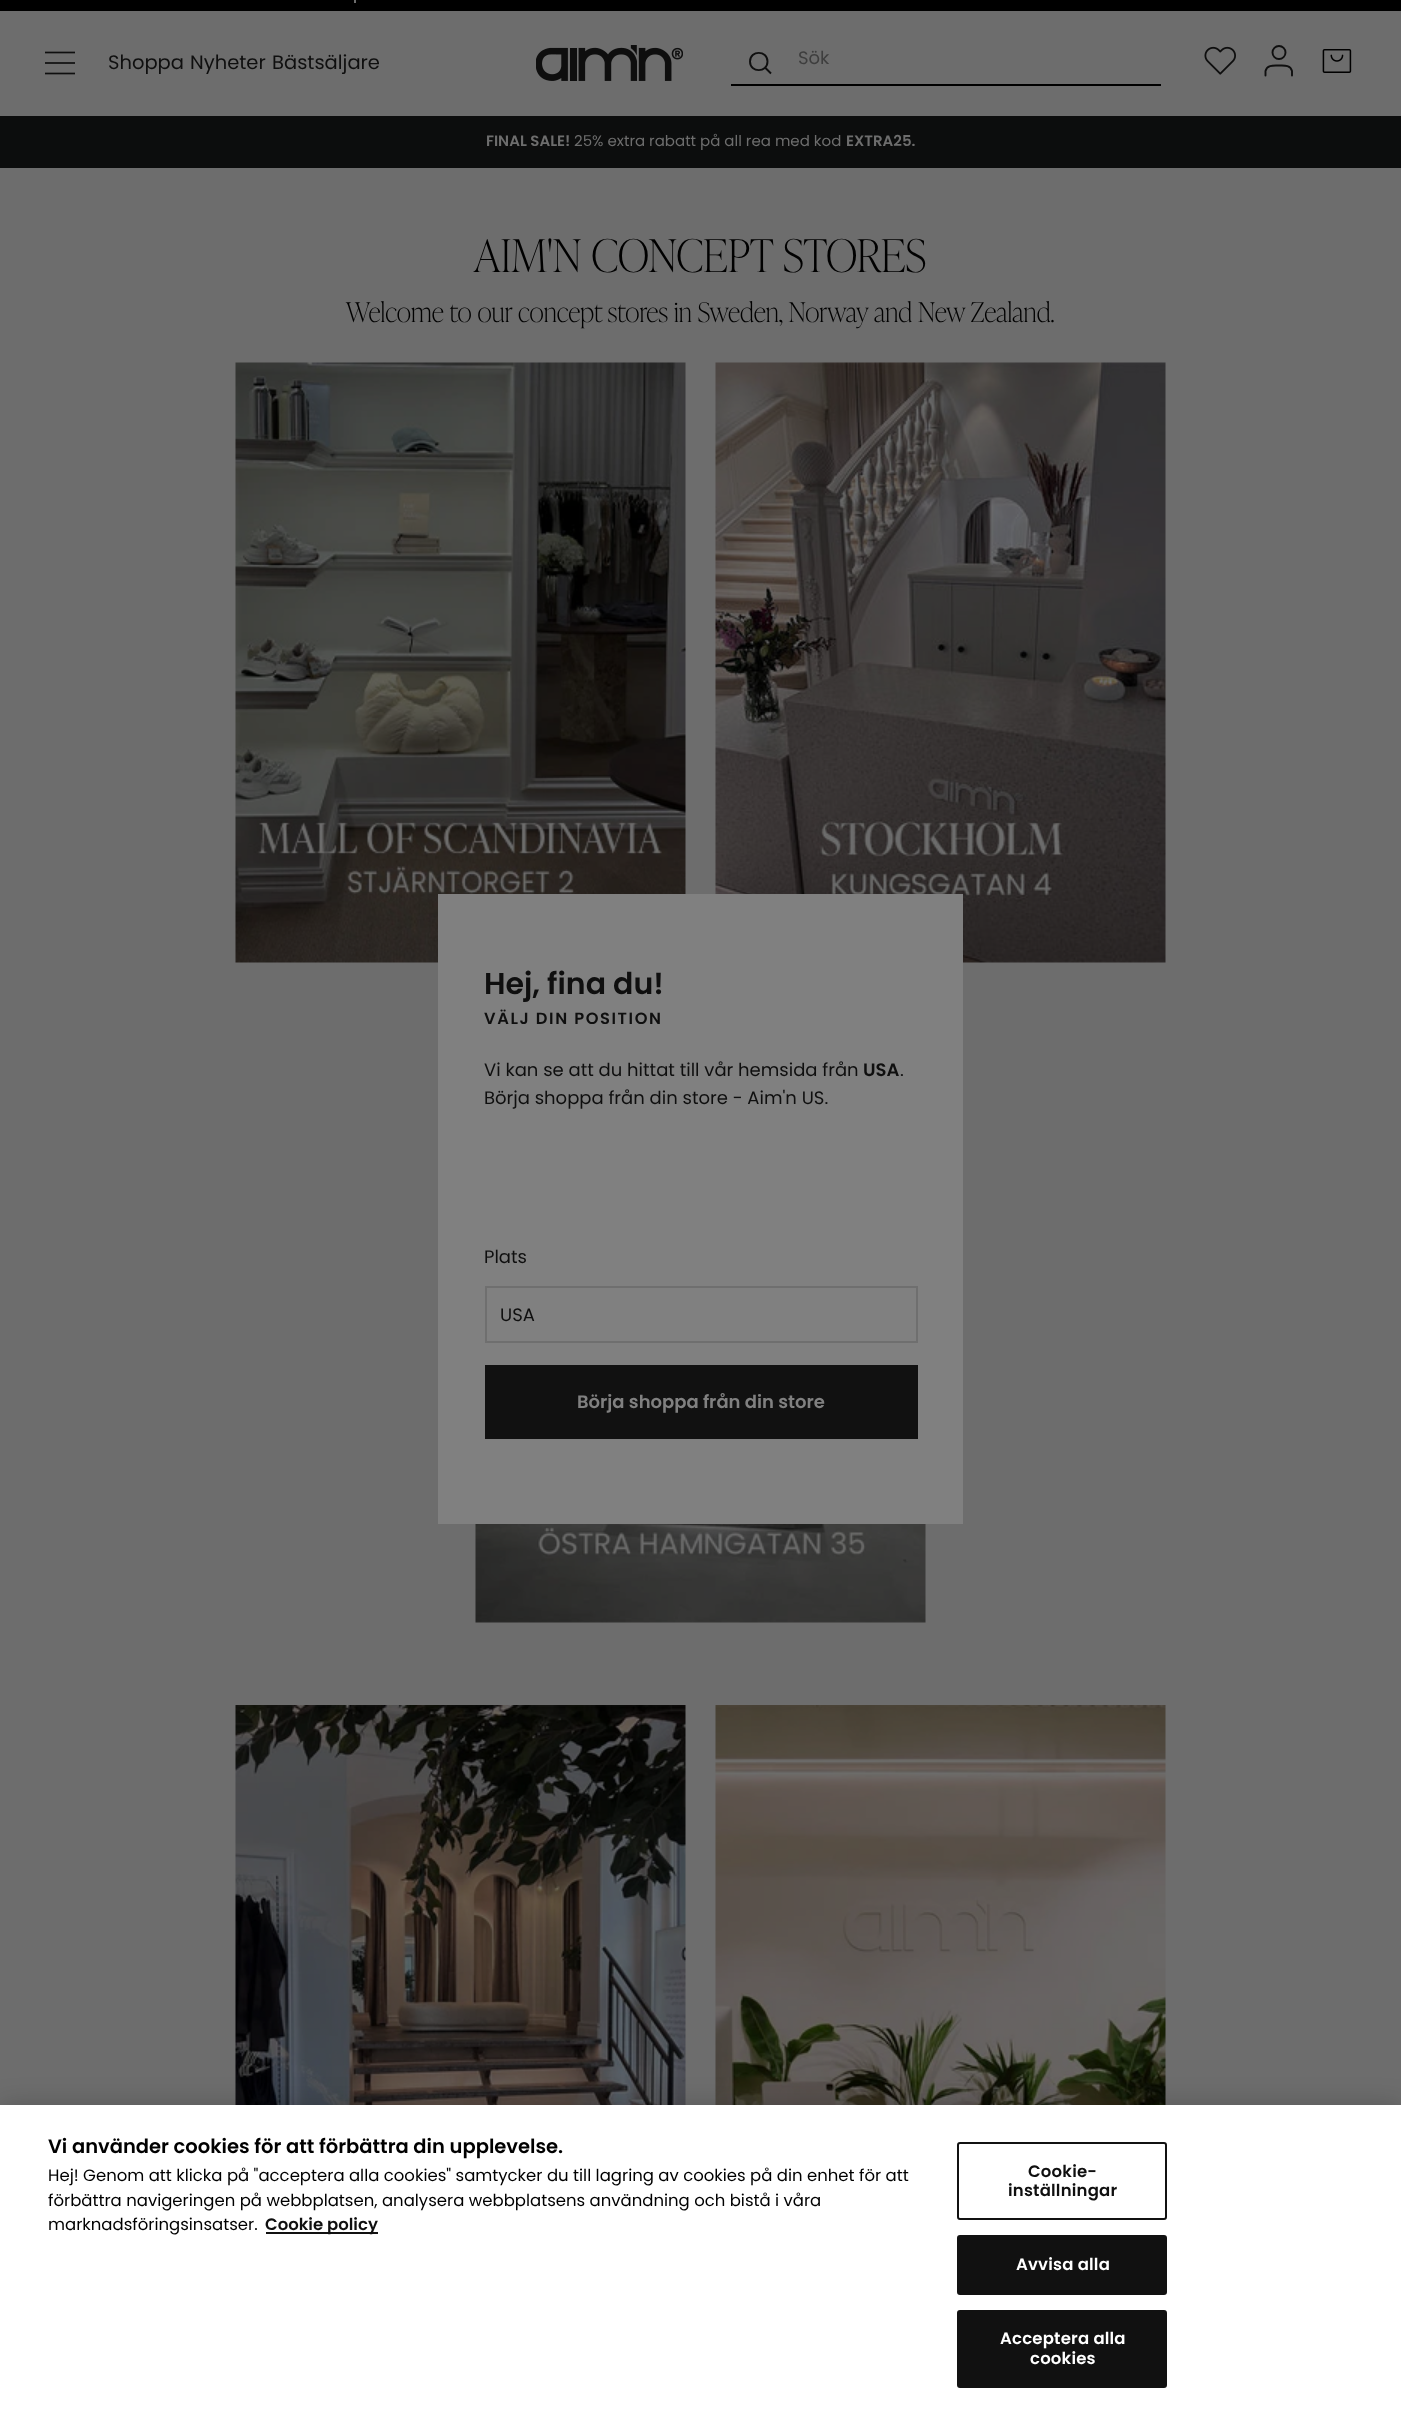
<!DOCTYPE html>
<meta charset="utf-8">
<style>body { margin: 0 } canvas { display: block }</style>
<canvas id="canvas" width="1401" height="2417"></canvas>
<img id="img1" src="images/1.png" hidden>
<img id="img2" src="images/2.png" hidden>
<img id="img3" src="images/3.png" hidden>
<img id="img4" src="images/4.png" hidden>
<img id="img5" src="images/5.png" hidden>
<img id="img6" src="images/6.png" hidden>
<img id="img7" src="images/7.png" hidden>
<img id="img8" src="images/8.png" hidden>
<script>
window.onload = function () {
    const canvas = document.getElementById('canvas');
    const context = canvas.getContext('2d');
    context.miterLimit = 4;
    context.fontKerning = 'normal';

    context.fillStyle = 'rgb(109, 109, 109)';
    context.fillRect(0, 0, 1401, 2417);
    context.fillStyle = 'rgb(0, 0, 0)';
    context.fillRect(0, 0, 1401, 11);
    context.fillStyle = 'rgb(109, 109, 109)';
    context.fillRect(354, 0, 2, 3);
    context.beginPath();
    context.moveTo(45, 52.5);
    context.lineTo(75, 52.5);
    context.strokeStyle = 'rgb(15, 15, 15)';
    context.lineWidth = 1.7;
    context.stroke();
    context.fillStyle = 'rgb(29, 29, 29)';
    context.fillRect(45, 62, 30, 2);
    context.beginPath();
    context.moveTo(45, 73.5);
    context.lineTo(75, 73.5);
    context.stroke();
    context.drawImage(document.getElementById('img1'), 536, 45, 147, 36);
    context.beginPath();
    context.moveTo(767.5, 61.5);
    context.bezierCurveTo(767.5, 73, 750, 73, 750, 61.5);
    context.bezierCurveTo(750, 50, 767.5, 50, 767.5, 61.5);
    context.closePath();
    context.moveTo(771, 73.5);
    context.lineTo(765, 67.5);
    context.lineWidth = 1.9;
    context.stroke();
    context.fillStyle = 'rgb(0, 0, 0)';
    context.fillRect(731, 84, 430, 2);
    context.drawImage(document.getElementById('img2'), 1204, 46, 32, 29);
    context.beginPath();
    context.arc(1279, 52.5, 6.5, 0, 2 * Math.PI);
    context.stroke();
    context.beginPath();
    context.moveTo(1292, 75.5);
    context.lineTo(1292, 71);
    context.bezierCurveTo(1290.5, 64.5, 1283.5, 65.5, 1279, 65.5);
    context.bezierCurveTo(1274, 65.5, 1267, 64.5, 1265.5, 71);
    context.lineTo(1265.5, 75.5);
    context.lineCap = 'round';
    context.lineJoin = 'round';
    context.stroke();
    context.drawImage(document.getElementById('img3'), 1322, 49, 30, 24);
    context.fillStyle = 'rgb(12, 13, 13)';
    context.fillRect(0, 116, 1401, 52);
    context.drawImage(document.getElementById('img4'), 235, 362, 451, 601);
    context.drawImage(document.getElementById('img5'), 715, 362, 451, 601);
    context.drawImage(document.getElementById('img6'), 475, 1524, 451, 99);
    context.drawImage(document.getElementById('img7'), 235, 1705, 451, 400);
    context.drawImage(document.getElementById('img8'), 715, 1705, 451, 400);
    context.fillStyle = 'rgb(128, 128, 128)';
    context.fillRect(438, 894, 525, 630);
    context.strokeStyle = 'rgb(111, 111, 111)';
    context.lineWidth = 2;
    context.lineJoin = 'miter';
    context.strokeRect(486, 1287, 431, 55);
    context.fillStyle = 'rgb(17, 17, 17)';
    context.fillRect(485, 1365, 433, 74);
    context.fillStyle = 'rgba(0, 0, 0, 0.2)';
    context.filter = 'blur(13.5px)';
    context.beginPath();
    context.rect(0, 2105, 1401, 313);
    context.fill();
    context.filter = 'none';
    context.fillStyle = 'rgb(255, 255, 255)';
    context.fillRect(0, 2105, 1401, 312);
    context.fillStyle = 'rgb(17, 17, 17)';
    context.fillRect(266, 2232, 112, 2);
    context.beginPath();
    context.roundRect(958, 2143, 208, 76, 2);
    context.strokeStyle = 'rgb(17, 17, 17)';
    context.stroke();
    context.beginPath();
    context.roundRect(958, 2236, 208, 58, 2);
    context.fill();
    context.stroke();
    context.beginPath();
    context.roundRect(958, 2311, 208, 76, 2);
    context.fill();
    context.stroke();
    context.font = '19.5px Poppins';
    context.fillStyle = 'rgb(15, 15, 15)';
    context.fillText('Shoppa', 108, 69);
    context.fillText('Nyheter', 190, 69);
    context.fillText('Bästsäljare', 272, 69);
    context.font = '18px Poppins';
    context.fillStyle = 'rgb(62, 62, 62)';
    context.fillText('Sök', 798, 64);
    context.font = '600 15px Poppins';
    context.fillStyle = 'rgb(109, 109, 109)';
    context.fillText('FINAL SALE!', 486, 146);
    context.font = '15px Poppins';
    context.fillText('25% extra rabatt på all rea med kod', 574, 146);
    context.font = '600 15px Poppins';
    context.fillText('EXTRA25.', 846, 146);
    context.font = '100 45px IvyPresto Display';
    context.fillStyle = 'rgb(0, 0, 0)';
    context.fillText('AIM\'N CONCEPT STORES', 474, 272);
    context.font = '100 27px IvyPresto Display';
    context.fillText('Welcome to our concept stores in Sweden, Norway and New Zealand.', 346, 322);
    context.font = '600 30px Poppins';
    context.fillStyle = 'rgb(15, 15, 15)';
    context.fillText('Hej, fina du!', 484, 994);
    context.letterSpacing = '1.6px';
    context.font = '600 16.25px Poppins';
    context.fillText('VÄLJ DIN POSITION', 484, 1024);
    context.letterSpacing = '0px';
    context.font = '18px Poppins';
    context.fillText('Vi kan se att du hittat till vår hemsida från', 484, 1076);
    context.font = '600 18px Poppins';
    context.fillText('USA', 863, 1076);
    context.font = '18px Poppins';
    context.fillText('.', 900, 1076);
    context.fillText('Börja shoppa från din store - Aim\'n US.', 484, 1104);
    context.fillText('Plats', 484, 1263);
    context.fillText('USA', 500, 1321);
    context.font = '600 18px Poppins';
    context.fillStyle = 'rgb(128, 128, 128)';
    context.fillText('Börja shoppa från din store', 577, 1408);
    context.font = '600 19.5px Poppins';
    context.fillStyle = 'rgb(0, 0, 0)';
    context.fillText('Vi använder cookies för att förbättra din upplevelse.', 48, 2153);
    context.font = '16.5px Poppins';
    context.fillText('Hej! Genom att klicka på "acceptera alla cookies" samtycker du till lagring av cookies på din enhet för att', 48, 2181);
    context.fillText('förbättra navigeringen på webbplatsen, analysera webbplatsens användning och bistå i våra', 48, 2206);
    context.fillText('marknadsföringsinsatser.', 48, 2230);
    context.font = '600 16.5px Poppins';
    context.fillStyle = 'rgb(15, 15, 15)';
    context.fillText('Cookie policy', 265, 2230);
    context.letterSpacing = '0.2px';
    context.fillText('Cookie-', 1028, 2177);
    context.fillText('inställningar', 1008, 2196);
    context.fillStyle = 'rgb(255, 255, 255)';
    context.fillText('Avvisa alla', 1016, 2270);
    context.fillText('Acceptera alla', 1000, 2344);
    context.fillText('cookies', 1030, 2364);
};
</script>
